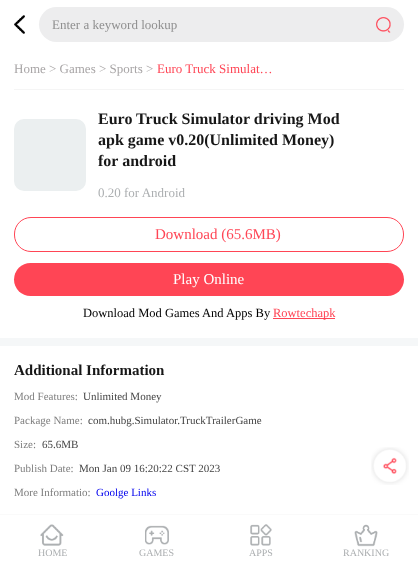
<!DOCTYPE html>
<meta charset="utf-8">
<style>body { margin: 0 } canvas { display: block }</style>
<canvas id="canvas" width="418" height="565"></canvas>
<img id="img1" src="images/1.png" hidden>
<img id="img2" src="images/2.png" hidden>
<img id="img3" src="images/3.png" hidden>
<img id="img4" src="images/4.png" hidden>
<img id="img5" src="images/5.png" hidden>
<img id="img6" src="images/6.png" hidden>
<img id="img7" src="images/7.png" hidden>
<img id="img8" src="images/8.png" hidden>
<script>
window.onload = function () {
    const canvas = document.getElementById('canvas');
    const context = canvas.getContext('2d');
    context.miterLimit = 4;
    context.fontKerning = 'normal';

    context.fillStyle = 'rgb(245, 247, 248)';
    context.fillRect(0, 0, 418, 565);
    context.fillStyle = 'rgb(255, 255, 255)';
    context.fillRect(0, 0, 418, 338);
    context.drawImage(document.getElementById('img1'), 14, 15, 11, 19);
    context.fillStyle = 'rgb(237, 237, 238)';
    context.beginPath();
    context.roundRect(39, 7, 365, 35, 17.5);
    context.fill();
    context.drawImage(document.getElementById('img2'), 376, 17, 15, 16);
    context.fillStyle = 'rgb(245, 245, 245)';
    context.fillRect(14, 89, 390, 1);
    context.drawImage(document.getElementById('img3'), 14, 119, 72, 72);
    context.beginPath();
    context.roundRect(14.5, 217.5, 389, 34, 16.5);
    context.strokeStyle = 'rgb(255, 69, 85)';
    context.stroke();
    context.fillStyle = 'rgb(255, 69, 85)';
    context.beginPath();
    context.roundRect(14, 263, 390, 33, 16.5);
    context.fill();
    context.fillRect(273, 318, 62, 1);
    context.fillStyle = 'rgb(255, 255, 255)';
    context.fillRect(0, 346, 418, 168);
    context.drawImage(document.getElementById('img4'), 371, 447, 38, 38);
    context.fillRect(0, 515, 418, 50);
    context.fillStyle = 'rgb(250, 250, 250)';
    context.fillRect(0, 514, 418, 1);
    context.drawImage(document.getElementById('img5'), 40, 524, 24, 22);
    context.drawImage(document.getElementById('img6'), 145, 525, 24, 20);
    context.drawImage(document.getElementById('img7'), 250, 524, 22, 22);
    context.drawImage(document.getElementById('img8'), 354, 524, 24, 23);
    context.font = '13px Liberation Serif';
    context.fillStyle = 'rgb(143, 143, 143)';
    context.fillText('Enter a keyword lookup', 52, 29);
    context.fillStyle = 'rgb(168, 165, 166)';
    context.fillText('Home > Games > Sports', 14, 73);
    context.fillText('>', 146, 73);
    context.fillStyle = 'rgb(255, 69, 85)';
    context.fillText('Euro Truck Simulat…', 157, 73);
    context.font = 'bold 16px Liberation Serif';
    context.fillStyle = 'rgb(23, 23, 23)';
    context.fillText('Euro Truck Simulator driving Mod', 98, 124);
    context.fillText('apk game v0.20(Unlimited Money)', 98, 145);
    context.fillText('for android', 98, 166);
    context.font = '13px Liberation Serif';
    context.fillStyle = 'rgb(172, 175, 177)';
    context.fillText('0.20 for Android', 98, 197);
    context.font = '15px Liberation Serif';
    context.fillStyle = 'rgb(255, 69, 85)';
    context.fillText('Download (65.6MB)', 155, 239);
    context.fillStyle = 'rgb(255, 255, 255)';
    context.fillText('Play Online', 173, 284);
    context.font = '12.5px Liberation Serif';
    context.fillStyle = 'rgb(0, 0, 0)';
    context.fillText('Download Mod Games And Apps By', 83, 317);
    context.fillStyle = 'rgb(255, 69, 85)';
    context.fillText('Rowtechapk', 273, 317);
    context.font = 'bold 15px Liberation Serif';
    context.fillStyle = 'rgb(23, 23, 23)';
    context.fillText('Additional Information', 14, 375);
    context.font = '11px Liberation Serif';
    context.fillStyle = 'rgb(126, 126, 126)';
    context.fillText('Mod Features:', 14, 400);
    context.fillStyle = 'rgb(68, 68, 68)';
    context.fillText('Unlimited Money', 83, 400);
    context.fillStyle = 'rgb(126, 126, 126)';
    context.fillText('Package Name:', 14, 424);
    context.fillStyle = 'rgb(68, 68, 68)';
    context.fillText('com.hubg.Simulator.TruckTrailerGame', 88, 424);
    context.fillStyle = 'rgb(126, 126, 126)';
    context.fillText('Size:', 14, 448);
    context.fillStyle = 'rgb(68, 68, 68)';
    context.fillText('65.6MB', 42, 448);
    context.fillStyle = 'rgb(126, 126, 126)';
    context.fillText('Publish Date:', 14, 472);
    context.fillStyle = 'rgb(68, 68, 68)';
    context.fillText('Mon Jan 09 16:20:22 CST 2023', 79, 472);
    context.fillStyle = 'rgb(126, 126, 126)';
    context.fillText('More Informatio:', 14, 496);
    context.fillStyle = 'rgb(0, 0, 238)';
    context.fillText('Goolge Links', 96, 496);
    context.font = '10px Liberation Serif';
    context.fillStyle = 'rgb(172, 175, 177)';
    context.fillText('HOME', 38, 556);
    context.fillText('GAMES', 139, 556);
    context.fillText('APPS', 249, 556);
    context.fillText('RANKING', 343, 556);
};
</script>
